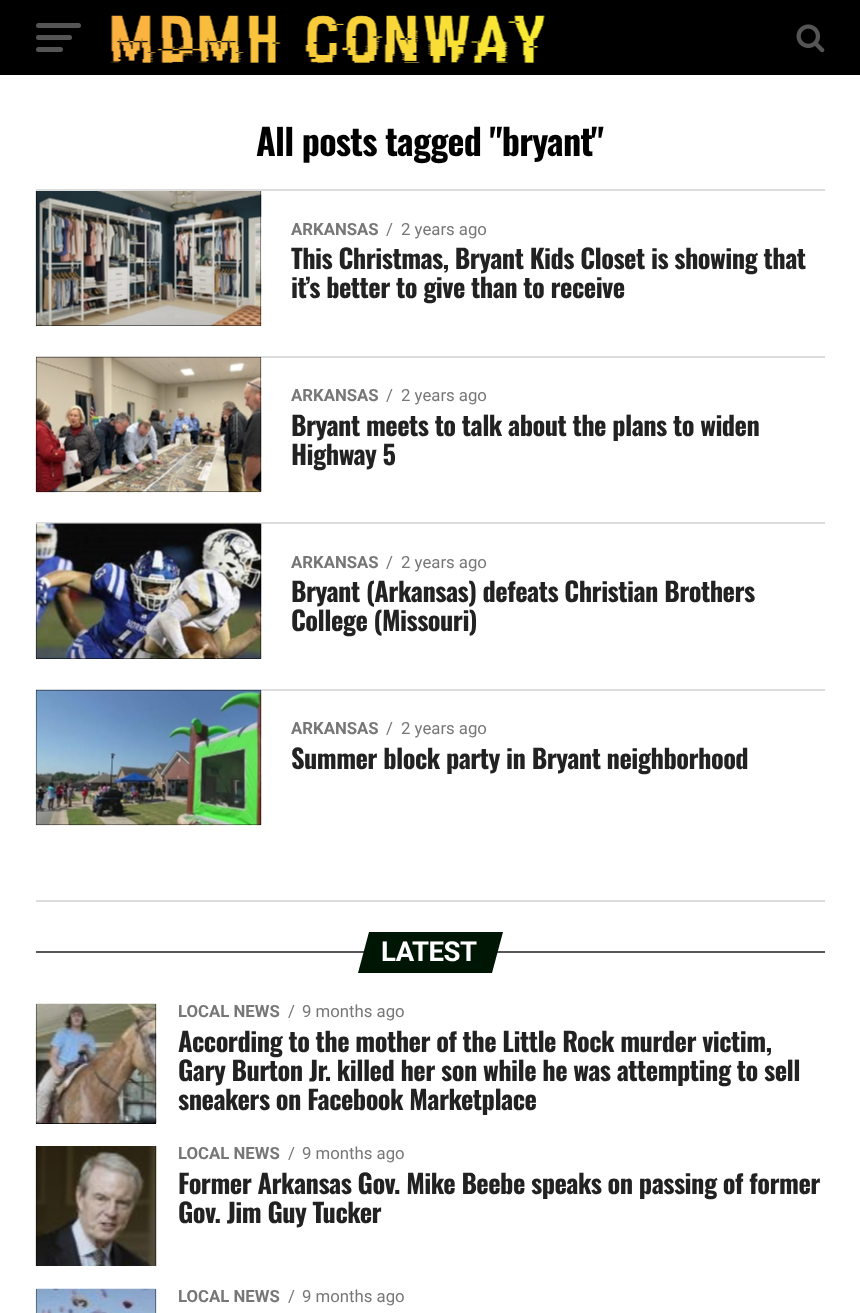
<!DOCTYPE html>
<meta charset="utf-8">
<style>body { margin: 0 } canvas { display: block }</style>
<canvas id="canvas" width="860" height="1313"></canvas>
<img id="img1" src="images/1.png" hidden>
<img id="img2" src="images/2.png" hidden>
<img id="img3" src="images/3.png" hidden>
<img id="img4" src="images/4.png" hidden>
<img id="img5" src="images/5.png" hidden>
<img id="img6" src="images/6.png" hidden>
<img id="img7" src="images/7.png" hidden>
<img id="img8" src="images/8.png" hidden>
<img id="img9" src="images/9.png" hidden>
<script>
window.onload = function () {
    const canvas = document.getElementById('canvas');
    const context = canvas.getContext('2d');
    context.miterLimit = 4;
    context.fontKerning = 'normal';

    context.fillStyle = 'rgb(255, 255, 255)';
    context.fillRect(0, 0, 860, 1313);
    context.fillStyle = 'rgb(0, 0, 0)';
    context.fillRect(0, 0, 860, 75);
    context.fillStyle = 'rgb(85, 85, 85)';
    context.beginPath();
    context.roundRect(36, 23, 45, 5, 2.5);
    context.fill();
    context.beginPath();
    context.roundRect(36, 35, 36, 5, 2.5);
    context.fill();
    context.beginPath();
    context.roundRect(36, 47, 27, 5, 2.5);
    context.fill();
    context.drawImage(document.getElementById('img1'), 110, 15, 435, 48);
    context.drawImage(document.getElementById('img2'), 796, 24, 29, 29);
    context.fillStyle = 'rgb(221, 221, 221)';
    context.fillRect(36, 189, 789, 2);
    context.fillStyle = 'rgb(0, 0, 0)';
    context.fillRect(36, 191, 225, 135);
    context.drawImage(document.getElementById('img3'), 35, 191, 227, 135);
    context.fillStyle = 'rgb(221, 221, 221)';
    context.fillRect(36, 356, 789, 2);
    context.fillStyle = 'rgb(0, 0, 0)';
    context.fillRect(36, 357, 225, 135);
    context.drawImage(document.getElementById('img4'), 35, 356, 227, 137);
    context.fillStyle = 'rgb(221, 221, 221)';
    context.fillRect(36, 522, 789, 2);
    context.fillStyle = 'rgb(0, 0, 0)';
    context.fillRect(36, 524, 225, 135);
    context.drawImage(document.getElementById('img5'), 35, 523, 227, 136);
    context.fillStyle = 'rgb(221, 221, 221)';
    context.fillRect(36, 689, 789, 2);
    context.fillStyle = 'rgb(0, 0, 0)';
    context.fillRect(36, 690, 225, 135);
    context.drawImage(document.getElementById('img6'), 35, 689, 227, 137);
    context.fillStyle = 'rgb(221, 221, 221)';
    context.fillRect(36, 900, 789, 2);
    context.fillStyle = 'rgb(85, 85, 85)';
    context.fillRect(36, 951, 789, 2);
    context.fillStyle = 'rgb(0, 22, 4)';
    context.beginPath();
    context.moveTo(369, 932);
    context.lineTo(503, 932);
    context.lineTo(492, 973);
    context.lineTo(358, 973);
    context.closePath();
    context.fill();
    context.fillStyle = 'rgb(0, 0, 0)';
    context.fillRect(36, 1004, 120, 120);
    context.drawImage(document.getElementById('img7'), 35, 1003, 122, 121);
    context.fillRect(36, 1146, 120, 120);
    context.drawImage(document.getElementById('img8'), 35, 1146, 122, 120);
    context.fillRect(36, 1289, 120, 24);
    context.drawImage(document.getElementById('img9'), 35, 1288, 122, 25);
    context.letterSpacing = '-0.75px';
    context.font = 'bold 36px Oswald';
    context.fillText('All posts tagged "bryant"', 256, 156);
    context.letterSpacing = '0px';
    context.font = 'bold 16.75px Roboto';
    context.fillStyle = 'rgb(119, 119, 119)';
    context.fillText('ARKANSAS', 291, 235);
    context.font = '16.75px Roboto';
    context.fillText('/', 386, 235);
    context.fillText('2 years ago', 401, 235);
    context.letterSpacing = '-0.53px';
    context.font = 'bold 26.4px Oswald';
    context.fillStyle = 'rgb(34, 34, 34)';
    context.fillText('This Christmas, Bryant Kids Closet is showing that', 291, 269);
    context.fillText('it’s better to give than to receive', 291, 298);
    context.letterSpacing = '0px';
    context.font = 'bold 16.75px Roboto';
    context.fillStyle = 'rgb(119, 119, 119)';
    context.fillText('ARKANSAS', 291, 401);
    context.font = '16.75px Roboto';
    context.fillText('/', 386, 401);
    context.fillText('2 years ago', 401, 401);
    context.letterSpacing = '-0.53px';
    context.font = 'bold 26.4px Oswald';
    context.fillStyle = 'rgb(34, 34, 34)';
    context.fillText('Bryant meets to talk about the plans to widen', 291, 436);
    context.fillText('Highway 5', 291, 465);
    context.letterSpacing = '0px';
    context.font = 'bold 16.75px Roboto';
    context.fillStyle = 'rgb(119, 119, 119)';
    context.fillText('ARKANSAS', 291, 568);
    context.font = '16.75px Roboto';
    context.fillText('/', 386, 568);
    context.fillText('2 years ago', 401, 568);
    context.letterSpacing = '-0.53px';
    context.font = 'bold 26.4px Oswald';
    context.fillStyle = 'rgb(34, 34, 34)';
    context.fillText('Bryant (Arkansas) defeats Christian Brothers', 291, 602);
    context.fillText('College (Missouri)', 291, 631);
    context.letterSpacing = '0px';
    context.font = 'bold 16.75px Roboto';
    context.fillStyle = 'rgb(119, 119, 119)';
    context.fillText('ARKANSAS', 291, 734);
    context.font = '16.75px Roboto';
    context.fillText('/', 386, 734);
    context.fillText('2 years ago', 401, 734);
    context.letterSpacing = '-0.53px';
    context.font = 'bold 26.4px Oswald';
    context.fillStyle = 'rgb(34, 34, 34)';
    context.fillText('Summer block party in Bryant neighborhood', 291, 769);
    context.letterSpacing = '-0.5px';
    context.font = 'bold 27.5px Roboto';
    context.fillStyle = 'rgb(255, 255, 255)';
    context.fillText('LATEST', 381, 961);
    context.letterSpacing = '0px';
    context.font = 'bold 16.75px Roboto';
    context.fillStyle = 'rgb(119, 119, 119)';
    context.fillText('LOCAL NEWS', 178, 1017);
    context.font = '16.75px Roboto';
    context.fillText('/', 288, 1017);
    context.fillText('9 months ago', 302, 1017);
    context.letterSpacing = '-0.53px';
    context.font = 'bold 26.4px Oswald';
    context.fillStyle = 'rgb(34, 34, 34)';
    context.fillText('According to the mother of the Little Rock murder victim,', 178, 1052);
    context.fillText('Gary Burton Jr. killed her son while he was attempting to sell', 178, 1081);
    context.fillText('sneakers on Facebook Marketplace', 178, 1110);
    context.letterSpacing = '0px';
    context.font = 'bold 16.75px Roboto';
    context.fillStyle = 'rgb(119, 119, 119)';
    context.fillText('LOCAL NEWS', 178, 1159);
    context.font = '16.75px Roboto';
    context.fillText('/', 288, 1159);
    context.fillText('9 months ago', 302, 1159);
    context.letterSpacing = '-0.53px';
    context.font = 'bold 26.4px Oswald';
    context.fillStyle = 'rgb(34, 34, 34)';
    context.fillText('Former Arkansas Gov. Mike Beebe speaks on passing of former', 178, 1194);
    context.fillText('Gov. Jim Guy Tucker', 178, 1223);
    context.letterSpacing = '0px';
    context.font = 'bold 16.75px Roboto';
    context.fillStyle = 'rgb(119, 119, 119)';
    context.fillText('LOCAL NEWS', 178, 1302);
    context.font = '16.75px Roboto';
    context.fillText('/', 288, 1302);
    context.fillText('9 months ago', 302, 1302);
};
</script>
